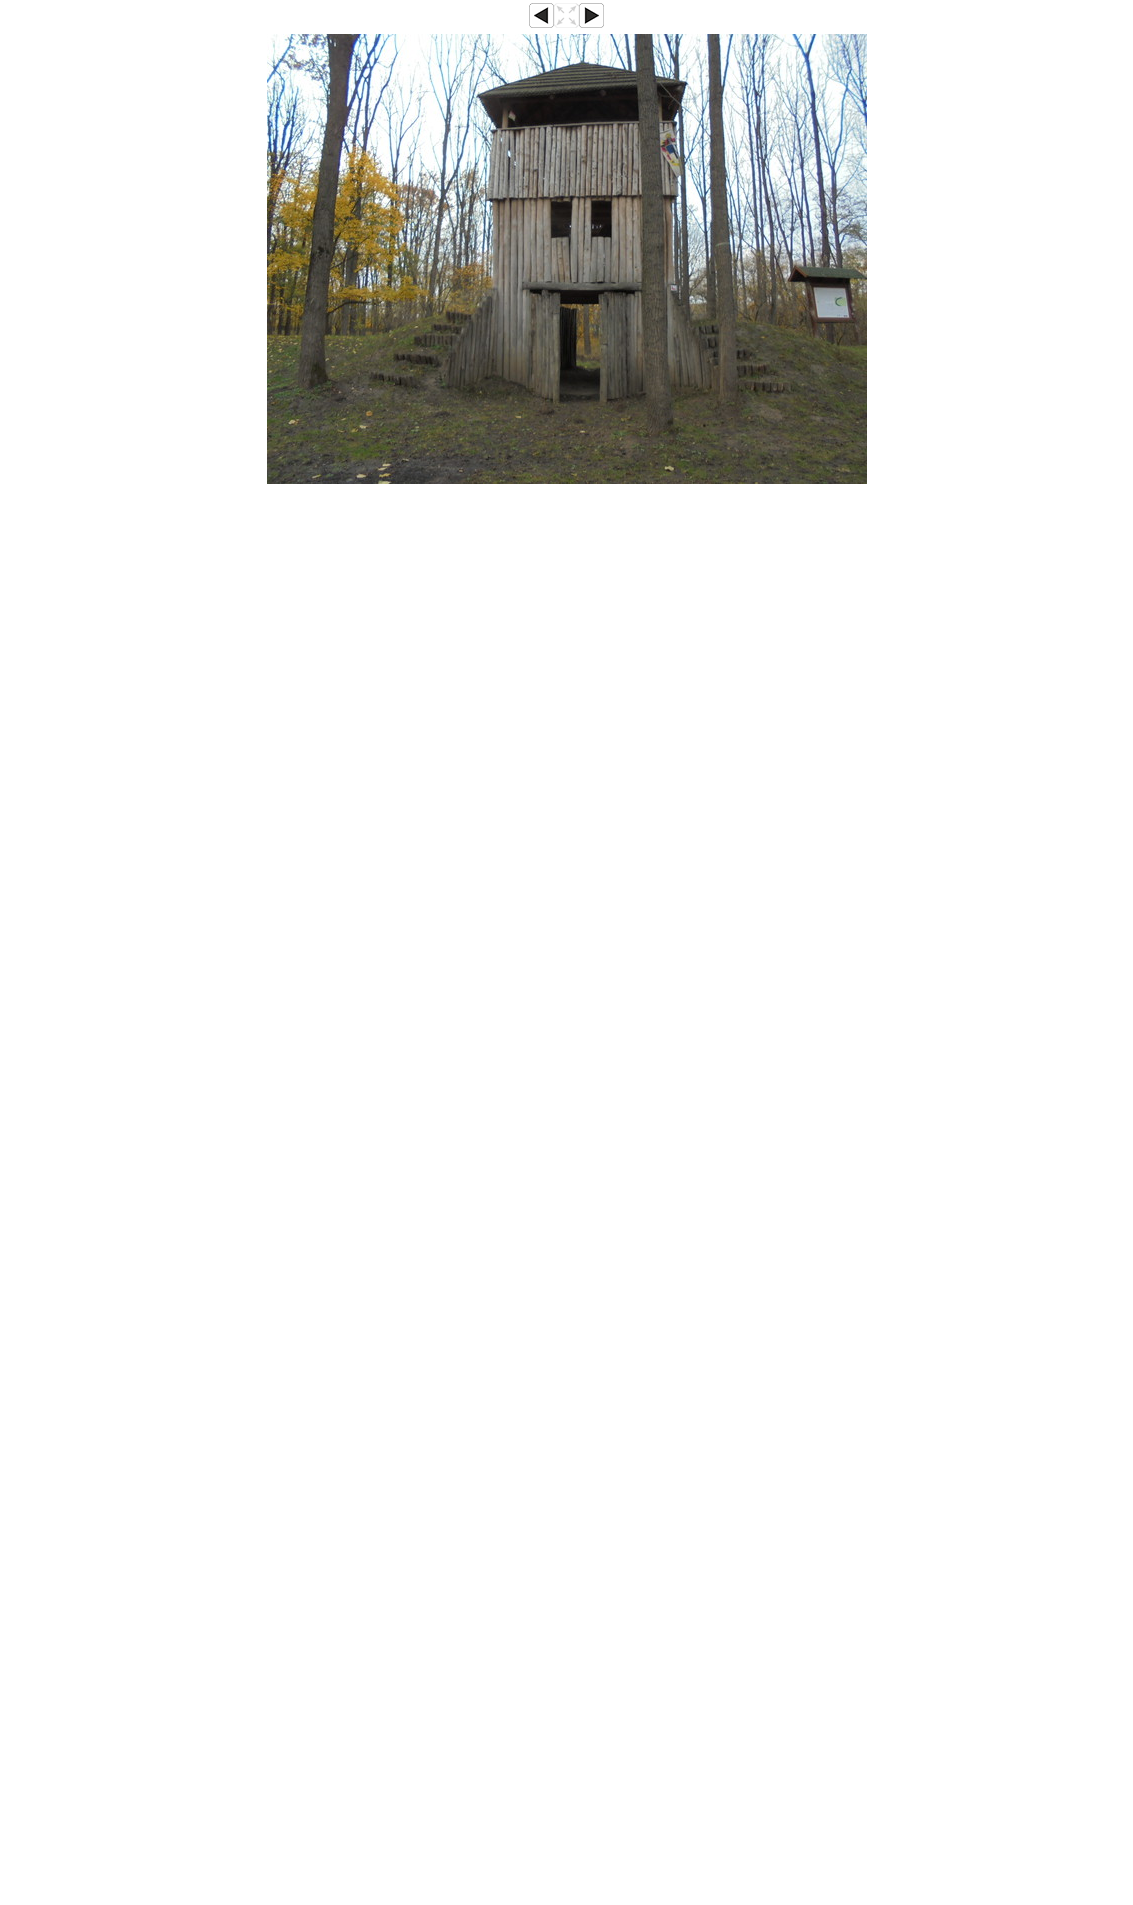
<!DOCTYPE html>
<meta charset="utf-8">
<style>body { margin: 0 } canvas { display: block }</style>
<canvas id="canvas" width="1133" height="1905"></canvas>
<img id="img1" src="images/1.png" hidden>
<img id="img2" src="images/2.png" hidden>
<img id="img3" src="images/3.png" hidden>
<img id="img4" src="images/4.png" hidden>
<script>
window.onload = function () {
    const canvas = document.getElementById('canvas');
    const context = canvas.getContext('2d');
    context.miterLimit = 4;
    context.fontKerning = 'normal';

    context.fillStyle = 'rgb(255, 255, 255)';
    context.fillRect(0, 0, 1133, 1905);
    context.drawImage(document.getElementById('img1'), 529, 3, 25, 25);
    context.drawImage(document.getElementById('img2'), 554, 3, 25, 25);
    context.drawImage(document.getElementById('img3'), 579, 3, 25, 25);
    context.drawImage(document.getElementById('img4'), 267, 34, 600, 450);
};
</script>
